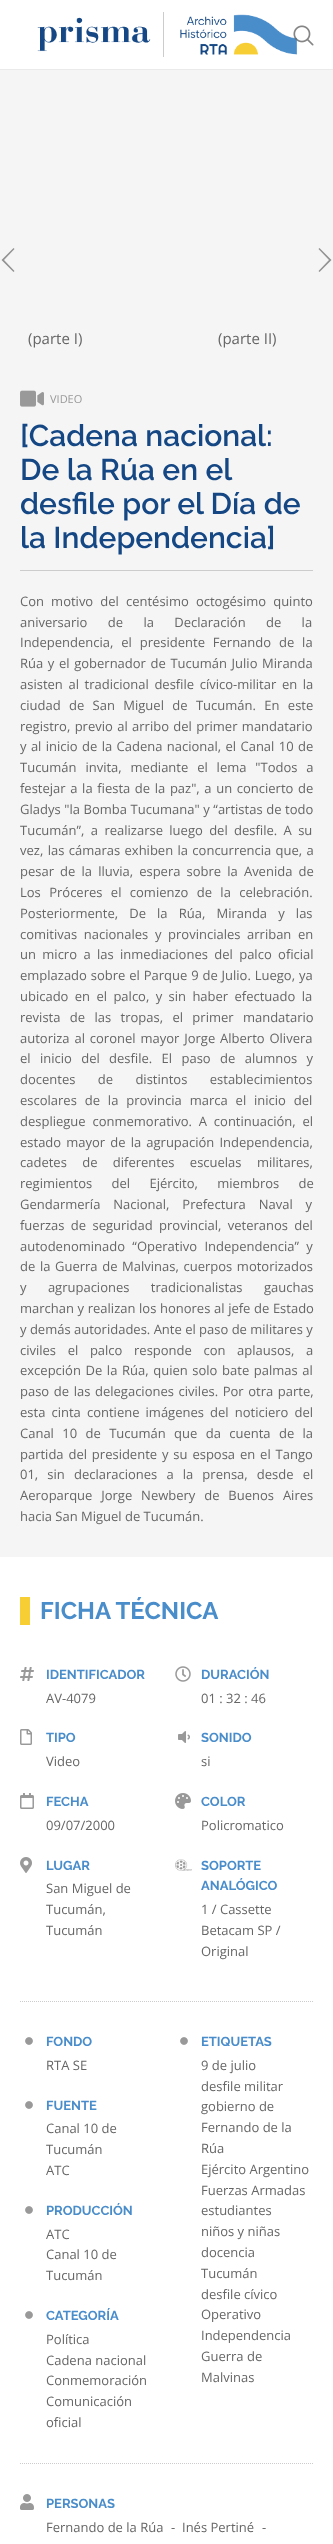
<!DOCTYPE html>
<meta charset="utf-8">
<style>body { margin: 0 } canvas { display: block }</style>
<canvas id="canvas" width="333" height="2544"></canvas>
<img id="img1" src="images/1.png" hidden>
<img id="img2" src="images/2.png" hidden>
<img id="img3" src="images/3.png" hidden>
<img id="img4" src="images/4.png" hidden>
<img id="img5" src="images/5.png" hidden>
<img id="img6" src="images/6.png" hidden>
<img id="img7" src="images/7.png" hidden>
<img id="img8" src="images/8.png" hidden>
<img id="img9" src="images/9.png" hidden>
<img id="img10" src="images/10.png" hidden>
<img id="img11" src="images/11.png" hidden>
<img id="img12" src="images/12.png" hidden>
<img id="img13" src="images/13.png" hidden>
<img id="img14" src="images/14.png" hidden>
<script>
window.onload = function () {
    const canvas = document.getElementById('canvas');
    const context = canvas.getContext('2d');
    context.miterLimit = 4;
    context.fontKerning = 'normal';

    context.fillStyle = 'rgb(255, 255, 255)';
    context.fillRect(0, 0, 333, 2544);
    context.fillStyle = 'rgb(234, 234, 234)';
    context.fillRect(0, 69, 333, 1);
    context.fillStyle = 'rgb(204, 204, 204)';
    context.fillRect(163, 12, 1, 45);
    context.drawImage(document.getElementById('img1'), 37, 17, 114, 35);
    context.drawImage(document.getElementById('img2'), 180, 14, 117, 41);
    context.drawImage(document.getElementById('img3'), 293, 25, 21, 21);
    context.fillStyle = 'rgb(245, 245, 245)';
    context.fillRect(0, 70, 333, 1487);
    context.fillStyle = 'rgb(147, 147, 147)';
    context.beginPath();
    context.moveTo(14.5, 249);
    context.lineTo(13.5, 248);
    context.lineTo(1.5, 260);
    context.lineTo(13.5, 272);
    context.lineTo(14.5, 271);
    context.lineTo(4, 260);
    context.closePath();
    context.fill();
    context.beginPath();
    context.moveTo(319.5, 248);
    context.lineTo(318.5, 249);
    context.lineTo(329, 260);
    context.lineTo(318.5, 271);
    context.lineTo(319.5, 272);
    context.lineTo(331.5, 260);
    context.closePath();
    context.fill();
    context.drawImage(document.getElementById('img4'), 20, 390, 24, 17);
    context.fillStyle = 'rgb(204, 204, 204)';
    context.fillRect(20, 570, 293, 1);
    context.fillStyle = 'rgb(247, 206, 51)';
    context.fillRect(20, 1597, 10, 28);
    context.beginPath();
    context.moveTo(20, 2001.5);
    context.lineTo(313, 2001.5);
    context.strokeStyle = 'rgb(204, 204, 204)';
    context.setLineDash([1, 1]);
    context.stroke();
    context.drawImage(document.getElementById('img5'), 20, 1667, 14, 14);
    context.drawImage(document.getElementById('img6'), 175, 1666, 16, 16);
    context.drawImage(document.getElementById('img7'), 20, 1729, 12, 16);
    context.drawImage(document.getElementById('img8'), 178, 1731, 12, 12);
    context.drawImage(document.getElementById('img9'), 20, 1793, 14, 16);
    context.drawImage(document.getElementById('img10'), 175, 1793, 16, 16);
    context.drawImage(document.getElementById('img11'), 20, 1857, 12, 16);
    context.drawImage(document.getElementById('img12'), 175, 1859, 17, 12);
    context.beginPath();
    context.moveTo(20, 2463.5);
    context.lineTo(313, 2463.5);
    context.stroke();
    context.drawImage(document.getElementById('img13'), 25, 2037, 8, 8);
    context.drawImage(document.getElementById('img13'), 180, 2037, 8, 8);
    context.drawImage(document.getElementById('img13'), 25, 2101, 8, 8);
    context.drawImage(document.getElementById('img13'), 25, 2206, 8, 8);
    context.drawImage(document.getElementById('img13'), 25, 2311, 8, 8);
    context.drawImage(document.getElementById('img14'), 20, 2494, 14, 16);
    context.font = '15px Open Sans';
    context.fillStyle = 'rgb(102, 102, 102)';
    context.fillText('(parte I)', 28, 344);
    context.fillText('(parte II)', 218, 344);
    context.font = '11px Open Sans';
    context.fillStyle = 'rgb(153, 153, 153)';
    context.fillText('VIDEO', 50, 403);
    context.font = '600 30px Raleway';
    context.fillStyle = 'rgb(20, 71, 131)';
    context.fillText('[Cadena nacional:', 20, 446);
    context.fillText('De la Rúa en el', 20, 480);
    context.fillText('desfile por el Día de', 20, 514);
    context.fillText('la Independencia]', 20, 548);
    context.wordSpacing = '3.75px';
    context.font = '13px Open Sans';
    context.fillStyle = 'rgb(102, 102, 102)';
    context.fillText('Con motivo del centésimo octogésimo quinto', 20, 606);
    context.wordSpacing = '17px';
    context.fillText('aniversario de la Declaración de la', 20, 627);
    context.wordSpacing = '4.5px';
    context.fillText('Independencia, el presidente Fernando de la', 20, 647);
    context.wordSpacing = '1.25px';
    context.fillText('Rúa y el gobernador de Tucumán Julio Miranda', 20, 668);
    context.wordSpacing = '2.25px';
    context.fillText('asisten al tradicional desfile cívico-militar en la', 20, 689);
    context.wordSpacing = '5px';
    context.fillText('ciudad de San Miguel de Tucumán. En este', 20, 710);
    context.wordSpacing = '1px';
    context.fillText('registro, previo al arribo del primer mandatario', 20, 731);
    context.fillText('y al inicio de la Cadena nacional, el Canal 10 de', 20, 751);
    context.wordSpacing = '5.5px';
    context.fillText('Tucumán invita, mediante el lema "Todos a', 20, 772);
    context.wordSpacing = '1.25px';
    context.fillText('festejar a la fiesta de la paz", a un concierto de', 20, 793);
    context.wordSpacing = '0.25px';
    context.fillText('Gladys "la Bomba Tucumana" y “artistas de todo', 20, 814);
    context.wordSpacing = '3px';
    context.fillText('Tucumán”, a realizarse luego del desfile. A su', 20, 835);
    context.wordSpacing = '1px';
    context.fillText('vez, las cámaras exhiben la concurrencia que, a', 20, 855);
    context.wordSpacing = '2.75px';
    context.fillText('pesar de la lluvia, espera sobre la Avenida de', 20, 876);
    context.wordSpacing = '5px';
    context.fillText('Los Próceres el comienzo de la celebración.', 20, 897);
    context.wordSpacing = '7.75px';
    context.fillText('Posteriormente, De la Rúa, Miranda y las', 20, 918);
    context.wordSpacing = '3.25px';
    context.fillText('comitivas nacionales y provinciales arriban en', 20, 939);
    context.wordSpacing = '3px';
    context.fillText('un micro a las inmediaciones del palco oficial', 20, 959);
    context.wordSpacing = '0.5px';
    context.fillText('emplazado sobre el Parque 9 de Julio. Luego, ya', 20, 980);
    context.wordSpacing = '3px';
    context.fillText('ubicado en el palco, y sin haber efectuado la', 20, 1001);
    context.wordSpacing = '6px';
    context.fillText('revista de las tropas, el primer mandatario', 20, 1022);
    context.wordSpacing = '1.5px';
    context.fillText('autoriza al coronel mayor Jorge Alberto Olivera', 20, 1043);
    context.wordSpacing = '6px';
    context.fillText('el inicio del desfile. El paso de alumnos y', 20, 1063);
    context.wordSpacing = '19px';
    context.fillText('docentes de distintos establecimientos', 20, 1084);
    context.wordSpacing = '4.5px';
    context.fillText('escolares de la provincia marca el inicio del', 20, 1105);
    context.wordSpacing = '3.5px';
    context.fillText('despliegue conmemorativo. A continuación, el', 20, 1126);
    context.wordSpacing = '1.75px';
    context.fillText('estado mayor de la agrupación Independencia,', 20, 1147);
    context.wordSpacing = '12px';
    context.fillText('cadetes de diferentes escuelas militares,', 20, 1167);
    context.wordSpacing = '16px';
    context.fillText('regimientos del Ejército, miembros de', 20, 1188);
    context.wordSpacing = '9.5px';
    context.fillText('Gendarmería Nacional, Prefectura Naval y', 20, 1209);
    context.wordSpacing = '3px';
    context.fillText('fuerzas de seguridad provincial, veteranos del', 20, 1230);
    context.wordSpacing = '4px';
    context.fillText('autodenominado “Operativo Independencia” y', 20, 1251);
    context.wordSpacing = '1.25px';
    context.fillText('de la Guerra de Malvinas, cuerpos motorizados', 20, 1271);
    context.wordSpacing = '18px';
    context.fillText('y agrupaciones tradicionalistas gauchas', 20, 1292);
    context.wordSpacing = '0.25px';
    context.fillText('marchan y realizan los honores al jefe de Estado', 20, 1313);
    context.wordSpacing = '0px';
    context.fillText('y demás autoridades. Ante el paso de militares y', 20, 1334);
    context.wordSpacing = '8.25px';
    context.fillText('civiles el palco responde con aplausos, a', 20, 1355);
    context.wordSpacing = '1.25px';
    context.fillText('excepción De la Rúa, quien solo bate palmas al', 20, 1375);
    context.fillText('paso de las delegaciones civiles. Por otra parte,', 20, 1396);
    context.wordSpacing = '2.75px';
    context.fillText('esta cinta contiene imágenes del noticiero del', 20, 1417);
    context.wordSpacing = '5px';
    context.fillText('Canal 10 de Tucumán que da cuenta de la', 20, 1438);
    context.wordSpacing = '1.5px';
    context.fillText('partida del presidente y su esposa en el Tango', 20, 1459);
    context.wordSpacing = '5.75px';
    context.fillText('01, sin declaraciones a la prensa, desde el', 20, 1479);
    context.wordSpacing = '5.5px';
    context.fillText('Aeroparque Jorge Newbery de Buenos Aires', 20, 1500);
    context.wordSpacing = '0px';
    context.fillText('hacia San Miguel de Tucumán.', 20, 1521);
    context.font = 'bold 24px Raleway';
    context.fillStyle = 'rgb(74, 141, 203)';
    context.fillText('FICHA TÉCNICA', 40, 1619);
    context.font = 'bold 13px Raleway';
    context.fillText('IDENTIFICADOR', 46, 1679);
    context.font = '13px Open Sans';
    context.fillStyle = 'rgb(102, 102, 102)';
    context.fillText('AV-4079', 46, 1703);
    context.font = 'bold 13px Raleway';
    context.fillStyle = 'rgb(74, 141, 203)';
    context.fillText('DURACIÓN', 201, 1679);
    context.font = '13px Open Sans';
    context.fillStyle = 'rgb(102, 102, 102)';
    context.fillText('01 : 32 : 46', 201, 1703);
    context.font = 'bold 13px Raleway';
    context.fillStyle = 'rgb(74, 141, 203)';
    context.fillText('TIPO', 46, 1742);
    context.font = '13px Open Sans';
    context.fillStyle = 'rgb(102, 102, 102)';
    context.fillText('Video', 46, 1766);
    context.font = 'bold 13px Raleway';
    context.fillStyle = 'rgb(74, 141, 203)';
    context.fillText('SONIDO', 201, 1742);
    context.font = '13px Open Sans';
    context.fillStyle = 'rgb(102, 102, 102)';
    context.fillText('si', 201, 1766);
    context.font = 'bold 13px Raleway';
    context.fillStyle = 'rgb(74, 141, 203)';
    context.fillText('FECHA', 46, 1806);
    context.font = '13px Open Sans';
    context.fillStyle = 'rgb(102, 102, 102)';
    context.fillText('09/07/2000', 46, 1830);
    context.font = 'bold 13px Raleway';
    context.fillStyle = 'rgb(74, 141, 203)';
    context.fillText('COLOR', 201, 1806);
    context.font = '13px Open Sans';
    context.fillStyle = 'rgb(102, 102, 102)';
    context.fillText('Policromatico', 201, 1830);
    context.font = 'bold 13px Raleway';
    context.fillStyle = 'rgb(74, 141, 203)';
    context.fillText('LUGAR', 46, 1870);
    context.font = '13px Open Sans';
    context.fillStyle = 'rgb(102, 102, 102)';
    context.fillText('San Miguel de', 46, 1893);
    context.fillText('Tucumán,', 46, 1914);
    context.fillText('Tucumán', 46, 1935);
    context.font = 'bold 13px Raleway';
    context.fillStyle = 'rgb(74, 141, 203)';
    context.fillText('SOPORTE', 201, 1870);
    context.fillText('ANALÓGICO', 201, 1890);
    context.font = '13px Open Sans';
    context.fillStyle = 'rgb(102, 102, 102)';
    context.fillText('1 / Cassette', 201, 1914);
    context.fillText('Betacam SP /', 201, 1935);
    context.fillText('Original', 201, 1956);
    context.font = 'bold 13px Raleway';
    context.fillStyle = 'rgb(74, 141, 203)';
    context.fillText('FONDO', 46, 2046);
    context.font = '13px Open Sans';
    context.fillStyle = 'rgb(102, 102, 102)';
    context.fillText('RTA SE', 46, 2070);
    context.font = 'bold 13px Raleway';
    context.fillStyle = 'rgb(74, 141, 203)';
    context.fillText('ETIQUETAS', 201, 2046);
    context.font = '13px Open Sans';
    context.fillStyle = 'rgb(102, 102, 102)';
    context.fillText('9 de julio', 201, 2070);
    context.fillText('desfile militar', 201, 2091);
    context.fillText('gobierno de', 201, 2111);
    context.fillText('Fernando de la', 201, 2132);
    context.fillText('Rúa', 201, 2153);
    context.fillText('Ejército Argentino', 201, 2174);
    context.fillText('Fuerzas Armadas', 201, 2195);
    context.fillText('estudiantes', 201, 2215);
    context.fillText('niños y niñas', 201, 2236);
    context.fillText('docencia', 201, 2257);
    context.fillText('Tucumán', 201, 2278);
    context.fillText('desfile cívico', 201, 2299);
    context.fillText('Operativo', 201, 2319);
    context.fillText('Independencia', 201, 2340);
    context.fillText('Guerra de', 201, 2361);
    context.fillText('Malvinas', 201, 2382);
    context.font = 'bold 13px Raleway';
    context.fillStyle = 'rgb(74, 141, 203)';
    context.fillText('FUENTE', 46, 2110);
    context.font = '13px Open Sans';
    context.fillStyle = 'rgb(102, 102, 102)';
    context.fillText('Canal 10 de', 46, 2133);
    context.fillText('Tucumán', 46, 2154);
    context.fillText('ATC', 46, 2175);
    context.font = 'bold 13px Raleway';
    context.fillStyle = 'rgb(74, 141, 203)';
    context.fillText('PRODUCCIÓN', 46, 2215);
    context.font = '13px Open Sans';
    context.fillStyle = 'rgb(102, 102, 102)';
    context.fillText('ATC', 46, 2239);
    context.fillText('Canal 10 de', 46, 2259);
    context.fillText('Tucumán', 46, 2280);
    context.font = 'bold 13px Raleway';
    context.fillStyle = 'rgb(74, 141, 203)';
    context.fillText('CATEGORÍA', 46, 2320);
    context.font = '13px Open Sans';
    context.fillStyle = 'rgb(102, 102, 102)';
    context.fillText('Política', 46, 2344);
    context.fillText('Cadena nacional', 46, 2365);
    context.fillText('Conmemoración', 46, 2385);
    context.fillText('Comunicación', 46, 2406);
    context.fillText('oficial', 46, 2427);
    context.font = 'bold 13px Raleway';
    context.fillStyle = 'rgb(74, 141, 203)';
    context.fillText('PERSONAS', 46, 2508);
    context.font = '13px Open Sans';
    context.fillStyle = 'rgb(102, 102, 102)';
    context.fillText('Fernando de la Rúa', 46, 2532);
    context.fillText('-', 171, 2532);
    context.fillText('Inés Pertiné', 182, 2532);
    context.fillText('-', 262, 2532);
};
</script>
